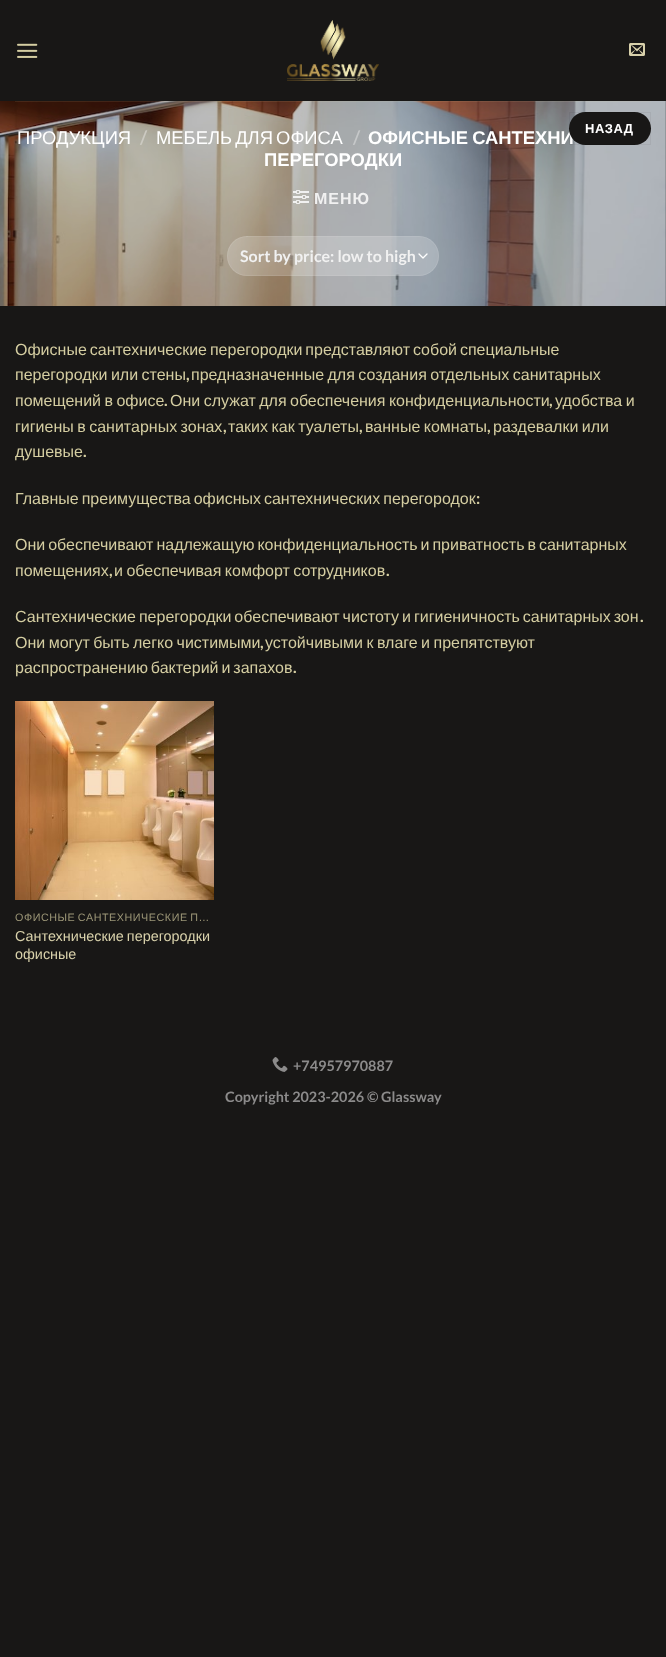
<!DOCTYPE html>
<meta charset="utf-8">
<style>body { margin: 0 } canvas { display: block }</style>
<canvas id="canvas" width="666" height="1657"></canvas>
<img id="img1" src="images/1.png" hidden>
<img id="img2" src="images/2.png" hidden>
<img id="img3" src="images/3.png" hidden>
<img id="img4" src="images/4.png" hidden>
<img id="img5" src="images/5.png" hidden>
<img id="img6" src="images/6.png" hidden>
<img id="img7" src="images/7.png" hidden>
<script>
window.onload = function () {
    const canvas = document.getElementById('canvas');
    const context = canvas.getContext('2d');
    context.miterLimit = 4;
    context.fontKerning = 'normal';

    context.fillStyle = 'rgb(24, 23, 22)';
    context.fillRect(0, 0, 666, 1657);
    context.drawImage(document.getElementById('img1'), 0, 101, 666, 205);
    context.drawImage(document.getElementById('img2'), 293, 190, 16, 14);
    context.fillStyle = 'rgba(255, 255, 255, 0.2)';
    context.beginPath();
    context.roundRect(227, 236, 212, 40, 20);
    context.fill();
    context.beginPath();
    context.moveTo(419, 254);
    context.lineTo(423, 258);
    context.lineTo(427, 254);
    context.strokeStyle = 'rgb(255, 255, 255)';
    context.lineWidth = 1.3;
    context.lineCap = 'round';
    context.lineJoin = 'round';
    context.stroke();
    context.beginPath();
    context.roundRect(227.5, 236.5, 211, 39, 19.5);
    context.strokeStyle = 'rgba(255, 255, 255, 0.09)';
    context.lineWidth = 1;
    context.lineJoin = 'miter';
    context.stroke();
    context.drawImage(document.getElementById('img3'), 17, 43, 21, 15);
    context.drawImage(document.getElementById('img4'), 287, 20, 92, 61);
    context.drawImage(document.getElementById('img5'), 629, 43, 16, 13);
    context.fillStyle = 'rgba(212, 205, 161, 0.1)';
    context.fillRect(15, 101, 636, 1);
    context.drawImage(document.getElementById('img6'), 15, 701, 199, 199);
    context.drawImage(document.getElementById('img7'), 272, 1057, 16, 15);
    context.font = '18.4px Liberation Sans';
    context.fillStyle = 'rgb(255, 255, 255)';
    context.fillText('ПРОДУКЦИЯ', 17, 144);
    context.font = 'bold 18.4px Lato';
    context.fillStyle = 'rgb(204, 202, 194)';
    context.fillText('/', 140, 144);
    context.wordSpacing = '-2px';
    context.font = '18.4px Liberation Sans';
    context.fillStyle = 'rgb(255, 255, 255)';
    context.fillText('МЕБЕЛЬ ДЛЯ ОФИСА', 156, 144);
    context.wordSpacing = '0px';
    context.font = 'bold 18.4px Lato';
    context.fillStyle = 'rgb(198, 200, 201)';
    context.fillText('/', 353, 144);
    context.wordSpacing = '-1px';
    context.font = 'bold 18.4px Liberation Sans';
    context.fillStyle = 'rgb(255, 255, 255)';
    context.fillText('ОФИСНЫЕ САНТЕХНИ', 368, 144);
    context.wordSpacing = '0px';
    context.fillText('ПЕРЕГОРОДКИ', 264, 166);
    context.letterSpacing = '1px';
    context.font = 'bold 16px Liberation Sans';
    context.fillStyle = 'rgb(241, 241, 241)';
    context.fillText('МЕНЮ', 314, 204);
    context.letterSpacing = '0px';
    context.font = 'bold 16px Lato';
    context.fillText('Sort by price: low to high', 240, 262);
    context.fillStyle = 'rgb(24, 23, 22)';
    context.beginPath();
    context.roundRect(569, 112, 82, 33, 16.5);
    context.fill();
    context.strokeStyle = 'rgba(0, 0, 0, 0.05)';
    context.strokeRect(569.5, 112.5, 81, 32);
    context.letterSpacing = '0.5px';
    context.font = 'bold 13px Liberation Sans';
    context.fillStyle = 'rgb(255, 255, 255)';
    context.fillText('НАЗАД', 585, 133);
    context.letterSpacing = '0px';
    context.wordSpacing = '-1.5px';
    context.font = '16px Liberation Sans';
    context.fillStyle = 'rgb(212, 205, 161)';
    context.fillText('Офисные сантехнические перегородки представляют собой специальные', 15, 355);
    context.wordSpacing = '-1px';
    context.fillText('перегородки или стены', 15, 380);
    context.wordSpacing = '0px';
    context.font = 'bold 16px Lato';
    context.fillText(',', 186, 380);
    context.wordSpacing = '-1px';
    context.font = '16px Liberation Sans';
    context.fillText('предназначенные для создания отдельных санитарных', 191, 380);
    context.fillText('помещений в офисе', 15, 406);
    context.wordSpacing = '0px';
    context.font = 'bold 16px Lato';
    context.fillText('.', 164, 406);
    context.wordSpacing = '-1px';
    context.font = '16px Liberation Sans';
    context.fillText('Они служат для обеспечения конфиденциальности', 170, 406);
    context.wordSpacing = '0px';
    context.font = 'bold 16px Lato';
    context.fillText(',', 549, 406);
    context.wordSpacing = '-1px';
    context.font = '16px Liberation Sans';
    context.fillText('удобства и', 555, 406);
    context.fillText('гигиены в санитарных зонах', 15, 432);
    context.wordSpacing = '0px';
    context.font = 'bold 16px Lato';
    context.fillText(',', 223, 432);
    context.wordSpacing = '-1px';
    context.font = '16px Liberation Sans';
    context.fillText('таких как туалеты', 228, 432);
    context.wordSpacing = '0px';
    context.font = 'bold 16px Lato';
    context.fillText(',', 359, 432);
    context.wordSpacing = '-1px';
    context.font = '16px Liberation Sans';
    context.fillText('ванные комнаты', 365, 432);
    context.wordSpacing = '0px';
    context.font = 'bold 16px Lato';
    context.fillText(',', 487, 432);
    context.wordSpacing = '-1px';
    context.font = '16px Liberation Sans';
    context.fillText('раздевалки или', 493, 432);
    context.wordSpacing = '0px';
    context.fillText('душевые', 15, 457);
    context.font = 'bold 16px Lato';
    context.fillText('.', 83, 457);
    context.wordSpacing = '-1.5px';
    context.font = '16px Liberation Sans';
    context.fillText('Главные преимущества офисных сантехнических перегородок', 15, 504);
    context.wordSpacing = '0px';
    context.font = 'bold 16px Lato';
    context.fillText(':', 476, 504);
    context.wordSpacing = '-1.5px';
    context.font = '16px Liberation Sans';
    context.fillText('Они обеспечивают надлежащую конфиденциальность и приватность в санитарных', 15, 550);
    context.wordSpacing = '0px';
    context.fillText('помещениях', 15, 576);
    context.font = 'bold 16px Lato';
    context.fillText(',', 109, 576);
    context.wordSpacing = '-1px';
    context.font = '16px Liberation Sans';
    context.fillText('и обеспечивая комфорт сотрудников', 114, 576);
    context.wordSpacing = '0px';
    context.font = 'bold 16px Lato';
    context.fillText('.', 386, 576);
    context.wordSpacing = '-1.5px';
    context.font = '16px Liberation Sans';
    context.fillText('Сантехнические перегородки обеспечивают чистоту и гигиеничность санитарных зон', 15, 622);
    context.wordSpacing = '0px';
    context.font = 'bold 16px Lato';
    context.fillText('.', 640, 622);
    context.wordSpacing = '-1px';
    context.font = '16px Liberation Sans';
    context.fillText('Они могут быть легко чистимыми', 15, 648);
    context.wordSpacing = '0px';
    context.font = 'bold 16px Lato';
    context.fillText(',', 260, 648);
    context.wordSpacing = '-1px';
    context.font = '16px Liberation Sans';
    context.fillText('устойчивыми к влаге и препятствуют', 265, 648);
    context.wordSpacing = '-1.5px';
    context.fillText('распространению бактерий и запахов', 15, 673);
    context.wordSpacing = '0px';
    context.font = 'bold 16px Lato';
    context.fillText('.', 293, 673);
    context.letterSpacing = '0.55px';
    context.wordSpacing = '-1px';
    context.font = '10.75px Liberation Sans';
    context.fillStyle = 'rgb(156, 150, 119)';
    context.fillText('ОФИСНЫЕ САНТЕХНИЧЕСКИЕ П…', 15, 921);
    context.letterSpacing = '0px';
    context.font = '14.4px Liberation Sans';
    context.fillStyle = 'rgb(216, 209, 171)';
    context.fillText('Сантехнические перегородки', 15, 941);
    context.wordSpacing = '0px';
    context.fillText('офисные', 15, 959);
    context.font = 'bold 14.4px Lato';
    context.fillStyle = 'rgb(140, 139, 139)';
    context.fillText('+74957970887', 293, 1071);
    context.fillText('Copyright 2023-2026 © Glassway', 225, 1102);
};
</script>
